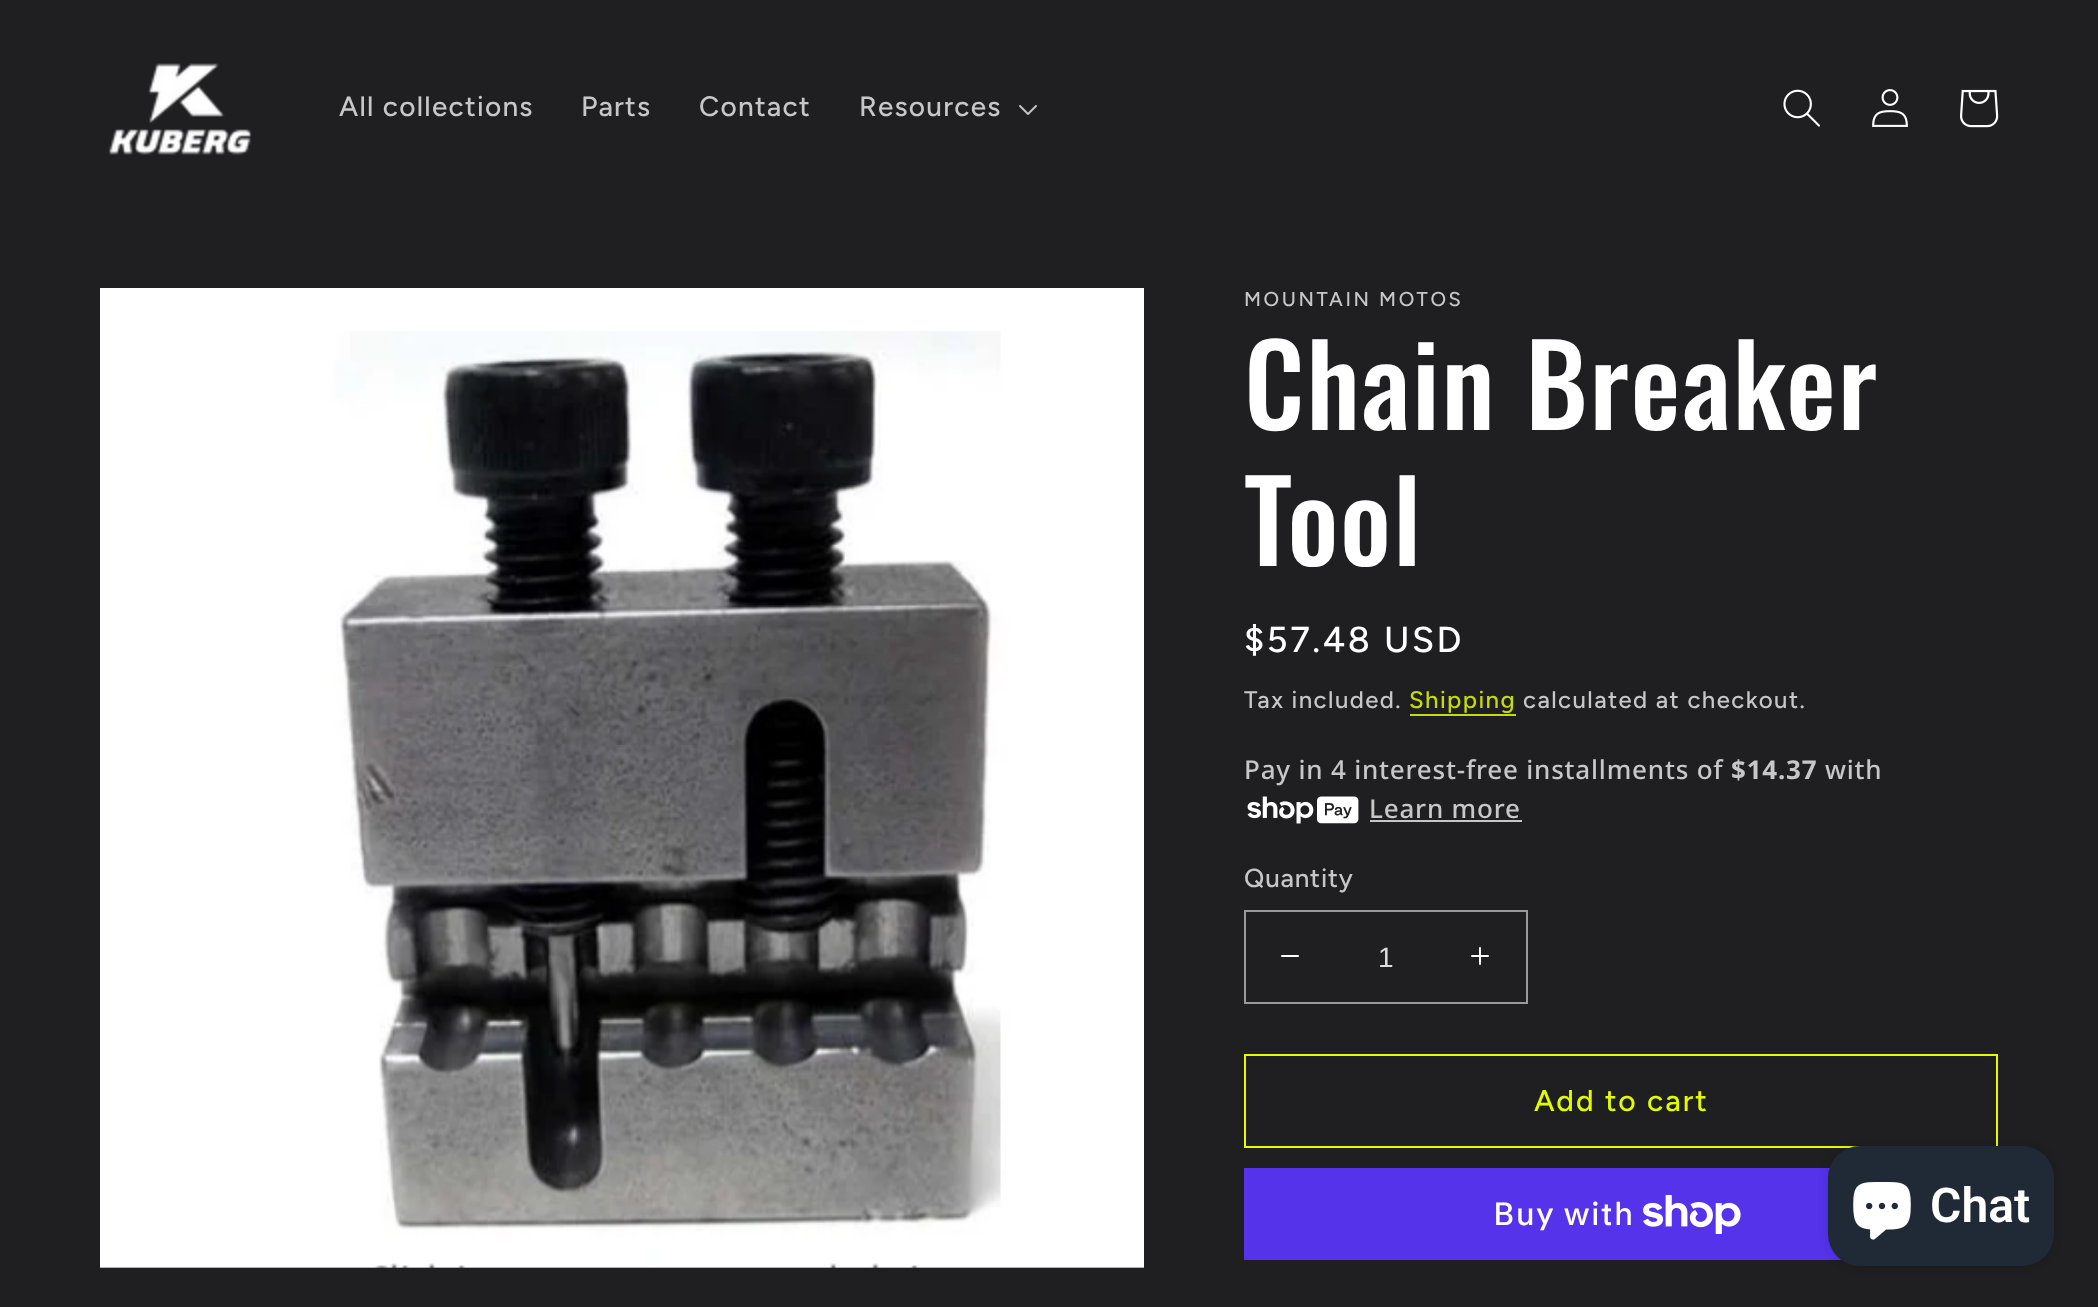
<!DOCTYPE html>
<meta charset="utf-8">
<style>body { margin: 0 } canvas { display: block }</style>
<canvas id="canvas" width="2098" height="1307"></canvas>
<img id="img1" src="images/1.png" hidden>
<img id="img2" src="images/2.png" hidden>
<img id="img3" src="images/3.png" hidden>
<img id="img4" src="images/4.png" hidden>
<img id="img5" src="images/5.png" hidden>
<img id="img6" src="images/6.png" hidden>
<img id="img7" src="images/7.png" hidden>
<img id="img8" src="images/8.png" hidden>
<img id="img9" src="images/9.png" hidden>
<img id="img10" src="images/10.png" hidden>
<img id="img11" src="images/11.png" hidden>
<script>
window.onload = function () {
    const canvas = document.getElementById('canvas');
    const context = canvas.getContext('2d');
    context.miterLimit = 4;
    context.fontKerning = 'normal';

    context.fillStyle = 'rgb(31, 31, 33)';
    context.fillRect(0, 0, 2098, 1307);
    context.drawImage(document.getElementById('img1'), 109, 63, 143, 92);
    context.drawImage(document.getElementById('img2'), 1019, 105, 18, 10);
    context.drawImage(document.getElementById('img3'), 1783, 89, 37, 38);
    context.drawImage(document.getElementById('img4'), 1872, 89, 36, 38);
    context.drawImage(document.getElementById('img5'), 1960, 89, 39, 39);
    context.drawImage(document.getElementById('img6'), 100, 288, 1044, 980);
    context.fillStyle = 'rgb(198, 219, 7)';
    context.fillRect(1410, 714, 106, 2);
    context.drawImage(document.getElementById('img7'), 1247, 796, 112, 28);
    context.fillStyle = 'rgb(199, 199, 200)';
    context.fillRect(1370, 820, 152, 2);
    context.drawImage(document.getElementById('img8'), 1281, 955, 18, 2);
    context.drawImage(document.getElementById('img9'), 1471, 947, 18, 18);
    context.strokeStyle = 'rgb(154, 154, 155)';
    context.lineWidth = 2;
    context.strokeRect(1245, 911, 282, 92);
    context.strokeStyle = 'rgb(227, 252, 2)';
    context.strokeRect(1245, 1055, 752, 92);
    context.fillStyle = 'rgb(84, 51, 235)';
    context.fillRect(1244, 1168, 598, 92);
    context.drawImage(document.getElementById('img10'), 1643, 1195, 98, 39);
    context.fillStyle = 'rgba(0, 0, 0, 0.15)';
    context.filter = 'blur(5px)';
    context.beginPath();
    context.roundRect(1828, 1146, 226, 120, 32);
    context.fill();
    context.filter = 'none';
    context.fillStyle = 'rgb(32, 42, 54)';
    context.beginPath();
    context.roundRect(1828, 1146, 226, 120, 32);
    context.fill();
    context.drawImage(document.getElementById('img11'), 1853, 1182, 58, 58);
    context.letterSpacing = '1.25px';
    context.font = '500 28px Figtree';
    context.fillStyle = 'rgb(199, 199, 200)';
    context.fillText('All collections', 339, 116);
    context.fillText('Parts', 581, 116);
    context.fillText('Contact', 699, 116);
    context.fillText('Resources', 859, 116);
    context.letterSpacing = '2.6px';
    context.font = '500 20px Figtree';
    context.fillText('MOUNTAIN MOTOS', 1244, 306);
    context.letterSpacing = '1.75px';
    context.font = '500 112px Oswald';
    context.fillStyle = 'rgb(255, 255, 255)';
    context.fillText('Chain Breaker', 1244, 430);
    context.fillText('Tool', 1244, 566);
    context.letterSpacing = '2.6px';
    context.font = '500 36px Figtree';
    context.fillText('$57.48 USD', 1244, 652);
    context.letterSpacing = '1.4px';
    context.font = '500 24px Figtree';
    context.fillStyle = 'rgb(199, 199, 200)';
    context.fillText('Tax included.', 1244, 708);
    context.fillStyle = 'rgb(198, 219, 7)';
    context.fillText('Shipping', 1409, 708);
    context.fillStyle = 'rgb(199, 199, 200)';
    context.fillText('calculated at checkout.', 1523, 708);
    context.letterSpacing = '0.8px';
    context.font = '500 26px Noto Sans';
    context.fillText('Pay in 4 interest-free installments of', 1244, 779);
    context.font = 'bold 26px Noto Sans';
    context.fillText('$14.37', 1731, 779);
    context.font = '500 26px Noto Sans';
    context.fillText('with', 1825, 779);
    context.fillText('Learn more', 1369, 818);
    context.font = '500 26px Figtree';
    context.fillText('Quantity', 1244, 887);
    context.letterSpacing = '0px';
    context.font = '28px Liberation Sans';
    context.fillStyle = 'rgb(221, 221, 222)';
    context.fillText('1', 1378, 967);
    context.letterSpacing = '2px';
    context.font = '500 30px Figtree';
    context.fillStyle = 'rgb(227, 252, 2)';
    context.fillText('Add to cart', 1534, 1111);
    context.letterSpacing = '1.25px';
    context.font = '500 32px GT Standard';
    context.fillStyle = 'rgb(255, 255, 255)';
    context.fillText('Buy with', 1493, 1225);
    context.letterSpacing = '0px';
    context.font = '600 48px Roboto';
    context.fillText('Chat', 1930, 1222);
};
</script>
